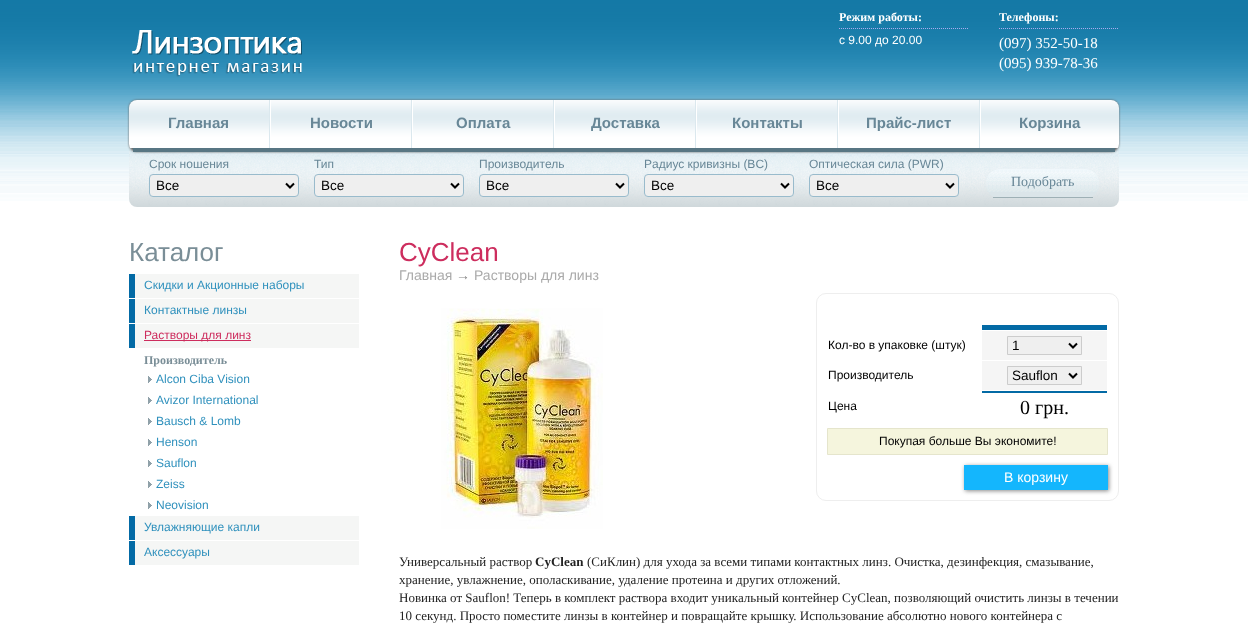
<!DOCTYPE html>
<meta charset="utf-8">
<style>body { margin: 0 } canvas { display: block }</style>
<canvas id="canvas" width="1248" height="624"></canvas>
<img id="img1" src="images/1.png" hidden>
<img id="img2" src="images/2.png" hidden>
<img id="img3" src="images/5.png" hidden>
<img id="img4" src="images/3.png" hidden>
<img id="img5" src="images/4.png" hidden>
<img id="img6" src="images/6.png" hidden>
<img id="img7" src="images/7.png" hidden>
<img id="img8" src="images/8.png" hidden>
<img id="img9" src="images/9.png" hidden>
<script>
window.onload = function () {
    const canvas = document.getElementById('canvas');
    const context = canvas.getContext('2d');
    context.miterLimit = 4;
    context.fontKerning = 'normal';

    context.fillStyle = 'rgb(255, 255, 255)';
    context.fillRect(0, 0, 1248, 624);
    context.drawImage(document.getElementById('img1'), 0, 0, 1248, 201);
    context.drawImage(document.getElementById('img2'), 132, 30, 170, 47);
    context.beginPath();
    context.moveTo(839, 28.5);
    context.lineTo(969, 28.5);
    context.strokeStyle = 'rgb(170, 170, 238)';
    context.setLineDash([1, 1]);
    context.stroke();
    context.beginPath();
    context.moveTo(999, 28.5);
    context.lineTo(1119, 28.5);
    context.stroke();
    context.drawImage(document.getElementById('img3'), 129, 144, 990, 63);
    context.fillStyle = 'rgb(102, 102, 102)';
    context.filter = 'blur(1px)';
    context.beginPath();
    context.roundRect(129, 100, 990, 52, 8);
    context.fill();
    context.filter = 'none';
    context.drawImage(document.getElementById('img4'), 129, 100, 990, 48);
    context.fillStyle = 'rgb(88, 118, 131)';
    context.fillRect(133, 148, 982, 4);
    context.drawImage(document.getElementById('img5'), 269, 100, 2, 48);
    context.drawImage(document.getElementById('img5'), 411, 100, 2, 48);
    context.drawImage(document.getElementById('img5'), 553, 100, 2, 48);
    context.drawImage(document.getElementById('img5'), 695, 100, 2, 48);
    context.drawImage(document.getElementById('img5'), 837, 100, 2, 48);
    context.drawImage(document.getElementById('img5'), 979, 100, 2, 48);
    context.fillStyle = 'rgb(239, 239, 239)';
    context.beginPath();
    context.roundRect(149.5, 174.5, 149, 22, 3.5);
    context.fill();
    context.strokeStyle = 'rgb(153, 187, 204)';
    context.setLineDash([]);
    context.stroke();
    context.beginPath();
    context.moveTo(286, 183.5);
    context.lineTo(290, 187.5);
    context.lineTo(294, 183.5);
    context.strokeStyle = 'rgb(0, 0, 0)';
    context.lineWidth = 2;
    context.stroke();
    context.beginPath();
    context.roundRect(314.5, 174.5, 149, 22, 3.5);
    context.fill();
    context.strokeStyle = 'rgb(153, 187, 204)';
    context.lineWidth = 1;
    context.stroke();
    context.beginPath();
    context.moveTo(451, 183.5);
    context.lineTo(455, 187.5);
    context.lineTo(459, 183.5);
    context.strokeStyle = 'rgb(0, 0, 0)';
    context.lineWidth = 2;
    context.stroke();
    context.beginPath();
    context.roundRect(479.5, 174.5, 149, 22, 3.5);
    context.fill();
    context.strokeStyle = 'rgb(153, 187, 204)';
    context.lineWidth = 1;
    context.stroke();
    context.beginPath();
    context.moveTo(616, 183.5);
    context.lineTo(620, 187.5);
    context.lineTo(624, 183.5);
    context.strokeStyle = 'rgb(0, 0, 0)';
    context.lineWidth = 2;
    context.stroke();
    context.beginPath();
    context.roundRect(644.5, 174.5, 149, 22, 3.5);
    context.fill();
    context.strokeStyle = 'rgb(153, 187, 204)';
    context.lineWidth = 1;
    context.stroke();
    context.beginPath();
    context.moveTo(781, 183.5);
    context.lineTo(785, 187.5);
    context.lineTo(789, 183.5);
    context.strokeStyle = 'rgb(0, 0, 0)';
    context.lineWidth = 2;
    context.stroke();
    context.beginPath();
    context.roundRect(809.5, 174.5, 149, 22, 3.5);
    context.fill();
    context.strokeStyle = 'rgb(153, 187, 204)';
    context.lineWidth = 1;
    context.stroke();
    context.beginPath();
    context.moveTo(946, 183.5);
    context.lineTo(950, 187.5);
    context.lineTo(954, 183.5);
    context.strokeStyle = 'rgb(0, 0, 0)';
    context.lineWidth = 2;
    context.stroke();
    context.fillStyle = 'rgb(219, 229, 233)';
    context.beginPath();
    context.roundRect(986, 169, 113, 29, 13);
    context.fill();
    context.drawImage(document.getElementById('img6'), 986, 169, 113, 23);
    context.fillStyle = 'rgb(158, 176, 181)';
    context.fillRect(993, 197, 100, 1);
    context.drawImage(document.getElementById('img7'), 129, 274, 230, 24);
    context.drawImage(document.getElementById('img7'), 129, 299, 230, 24);
    context.drawImage(document.getElementById('img7'), 129, 324, 230, 24);
    context.fillStyle = 'rgb(205, 45, 94)';
    context.fillRect(144, 340, 107, 1);
    context.drawImage(document.getElementById('img8'), 148, 376, 4, 7);
    context.drawImage(document.getElementById('img8'), 148, 397, 4, 7);
    context.drawImage(document.getElementById('img8'), 148, 418, 4, 7);
    context.drawImage(document.getElementById('img8'), 148, 439, 4, 7);
    context.drawImage(document.getElementById('img8'), 148, 460, 4, 7);
    context.drawImage(document.getElementById('img8'), 148, 481, 4, 7);
    context.drawImage(document.getElementById('img8'), 148, 502, 4, 7);
    context.drawImage(document.getElementById('img7'), 129, 516, 230, 24);
    context.drawImage(document.getElementById('img7'), 129, 541, 230, 24);
    context.drawImage(document.getElementById('img9'), 441, 308, 162, 221);
    context.beginPath();
    context.roundRect(816.5, 293.5, 302, 207, 9.5);
    context.strokeStyle = 'rgb(238, 238, 238)';
    context.lineWidth = 1;
    context.stroke();
    context.fillStyle = 'rgb(3, 106, 165)';
    context.fillRect(982, 325, 125, 5);
    context.fillStyle = 'rgb(245, 245, 245)';
    context.fillRect(982, 331, 125, 29);
    context.fillStyle = 'rgb(239, 239, 239)';
    context.beginPath();
    context.rect(1007.5, 336.5, 74, 18);
    context.fill();
    context.strokeStyle = 'rgb(204, 204, 204)';
    context.stroke();
    context.beginPath();
    context.moveTo(1069, 343.5);
    context.lineTo(1073, 347.5);
    context.lineTo(1077, 343.5);
    context.strokeStyle = 'rgb(0, 0, 0)';
    context.lineWidth = 2;
    context.stroke();
    context.fillStyle = 'rgb(245, 245, 245)';
    context.fillRect(982, 361, 125, 29);
    context.fillStyle = 'rgb(239, 239, 239)';
    context.beginPath();
    context.rect(1007.5, 366.5, 74, 18);
    context.fill();
    context.strokeStyle = 'rgb(204, 204, 204)';
    context.lineWidth = 1;
    context.stroke();
    context.beginPath();
    context.moveTo(1069, 373.5);
    context.lineTo(1073, 377.5);
    context.lineTo(1077, 373.5);
    context.strokeStyle = 'rgb(0, 0, 0)';
    context.lineWidth = 2;
    context.stroke();
    context.fillStyle = 'rgb(3, 106, 165)';
    context.fillRect(982, 391, 125, 2);
    context.fillStyle = 'rgb(245, 245, 221)';
    context.beginPath();
    context.rect(827.5, 428.5, 280, 26);
    context.fill();
    context.strokeStyle = 'rgb(229, 229, 204)';
    context.lineWidth = 1;
    context.stroke();
    context.fillStyle = 'rgb(136, 136, 136)';
    context.filter = 'blur(2px)';
    context.beginPath();
    context.rect(965, 466, 144, 25);
    context.fill();
    context.filter = 'none';
    context.fillStyle = 'rgb(20, 182, 253)';
    context.fillRect(964, 465, 144, 25);
    context.font = 'bold 12px Liberation Serif';
    context.fillStyle = 'rgb(255, 255, 255)';
    context.fillText('Режим работы:', 839, 21);
    context.font = '12px Liberation Sans';
    context.fillText('с 9.00 до 20.00', 839, 44);
    context.font = 'bold 12px Liberation Serif';
    context.fillText('Телефоны:', 999, 21);
    context.font = '15px Liberation Serif';
    context.fillText('(097) 352-50-18', 999, 48);
    context.fillText('(095) 939-78-36', 999, 68);
    context.font = 'bold 15px Liberation Sans';
    context.fillStyle = 'rgb(104, 135, 151)';
    context.fillText('Главная', 168, 128);
    context.fillText('Новости', 310, 128);
    context.fillText('Оплата', 456, 128);
    context.fillText('Доставка', 591, 128);
    context.fillText('Контакты', 732, 128);
    context.fillText('Прайс-лист', 866, 128);
    context.fillText('Корзина', 1019, 128);
    context.font = '12px Liberation Sans';
    context.fillText('Срок ношения', 149, 168);
    context.font = '13.5px Liberation Sans';
    context.fillStyle = 'rgb(0, 0, 0)';
    context.fillText('Все', 156, 190);
    context.font = '12px Liberation Sans';
    context.fillStyle = 'rgb(104, 135, 151)';
    context.fillText('Тип', 314, 168);
    context.font = '13.5px Liberation Sans';
    context.fillStyle = 'rgb(0, 0, 0)';
    context.fillText('Все', 321, 190);
    context.font = '12px Liberation Sans';
    context.fillStyle = 'rgb(104, 135, 151)';
    context.fillText('Производитель', 479, 168);
    context.font = '13.5px Liberation Sans';
    context.fillStyle = 'rgb(0, 0, 0)';
    context.fillText('Все', 486, 190);
    context.font = '12px Liberation Sans';
    context.fillStyle = 'rgb(104, 135, 151)';
    context.fillText('Pадиус кривизны (BC)', 644, 168);
    context.font = '13.5px Liberation Sans';
    context.fillStyle = 'rgb(0, 0, 0)';
    context.fillText('Все', 651, 190);
    context.font = '12px Liberation Sans';
    context.fillStyle = 'rgb(104, 135, 151)';
    context.fillText('Оптическая сила (PWR)', 809, 168);
    context.font = '13.5px Liberation Sans';
    context.fillStyle = 'rgb(0, 0, 0)';
    context.fillText('Все', 816, 190);
    context.font = '14px Liberation Serif';
    context.fillStyle = 'rgb(104, 135, 151)';
    context.fillText('Подобрать', 1011, 186);
    context.font = '26px Liberation Sans';
    context.fillStyle = 'rgb(122, 142, 151)';
    context.fillText('Каталог', 129, 261);
    context.font = '12px Liberation Sans';
    context.fillStyle = 'rgb(48, 145, 189)';
    context.fillText('Скидки и Акционные наборы', 144, 289);
    context.fillText('Контактные линзы', 144, 314);
    context.fillStyle = 'rgb(205, 45, 94)';
    context.fillText('Растворы для линз', 144, 339);
    context.font = 'bold 12px Liberation Serif';
    context.fillStyle = 'rgb(122, 142, 151)';
    context.fillText('Производитель', 144, 364);
    context.font = '12px Liberation Sans';
    context.fillStyle = 'rgb(48, 145, 189)';
    context.fillText('Alcon Ciba Vision', 156, 383);
    context.fillText('Avizor International', 156, 404);
    context.fillText('Bausch & Lomb', 156, 425);
    context.fillText('Henson', 156, 446);
    context.fillText('Sauflon', 156, 467);
    context.fillText('Zeiss', 156, 488);
    context.fillText('Neovision', 156, 509);
    context.fillText('Увлажняющие капли', 144, 531);
    context.fillText('Аксессуары', 144, 556);
    context.font = '26px Liberation Sans';
    context.fillStyle = 'rgb(205, 45, 94)';
    context.fillText('CyClean', 399, 261);
    context.font = '14px Liberation Sans';
    context.fillStyle = 'rgb(170, 170, 170)';
    context.fillText('Главная', 399, 280);
    context.fillStyle = 'rgb(136, 136, 136)';
    context.fillText('→', 456, 280);
    context.fillStyle = 'rgb(170, 170, 170)';
    context.fillText('Растворы для линз', 474, 280);
    context.font = '12px Liberation Sans';
    context.fillStyle = 'rgb(0, 0, 0)';
    context.fillText('Кол-во в упаковке (штук)', 828, 349);
    context.font = '13.5px Liberation Sans';
    context.fillText('1', 1012, 350);
    context.font = '12px Liberation Sans';
    context.fillText('Производитель', 828, 379);
    context.font = '13.5px Liberation Sans';
    context.fillText('Sauflon', 1012, 380);
    context.font = '12px Liberation Sans';
    context.fillText('Цена', 828, 410);
    context.font = '20px Liberation Serif';
    context.fillText('0 грн.', 1020, 414);
    context.font = '12px Liberation Sans';
    context.fillText('Покупая больше Вы экономите!', 879, 445);
    context.font = '14px Liberation Sans';
    context.fillStyle = 'rgb(255, 255, 255)';
    context.fillText('В корзину', 1004, 482);
    context.font = '13px Liberation Serif';
    context.fillStyle = 'rgb(34, 34, 34)';
    context.fillText('Универсальный раствор', 399, 566);
    context.font = 'bold 13px Liberation Serif';
    context.fillText('CyClean', 535, 566);
    context.font = '13px Liberation Serif';
    context.fillText('(СиКлин) для ухода за всеми типами контактных линз. Очистка, дезинфекция, смазывание,', 587, 566);
    context.fillText('хранение, увлажнение, ополаскивание, удаление протеина и других отложений.', 399, 584);
    context.fillText('Новинка от Sauflon! Теперь в комплект раствора входит уникальный контейнер CyClean, позволяющий очистить линзы в течении', 399, 602);
    context.fillText('10 секунд. Просто поместите линзы в контейнер и повращайте крышку. Использование абсолютно нового контейнера с', 399, 620);
};
</script>
